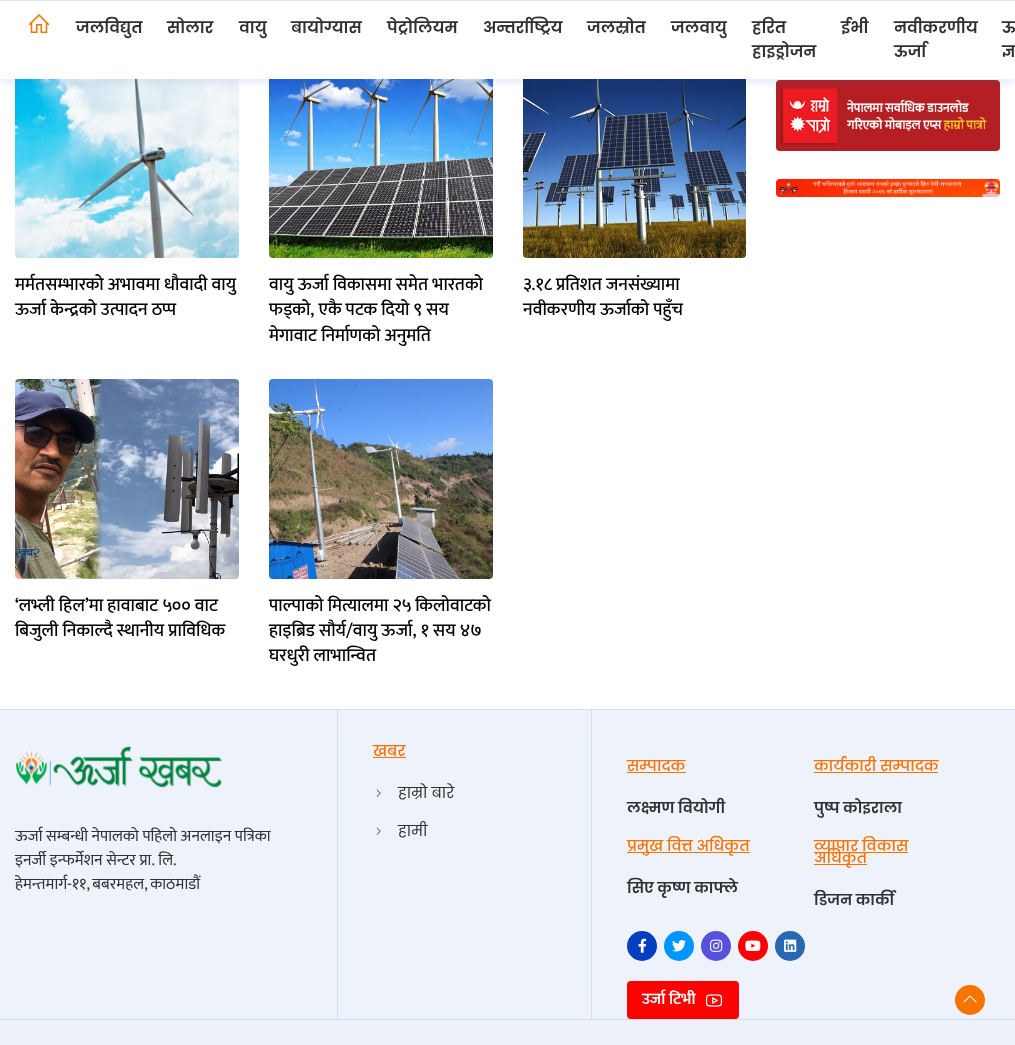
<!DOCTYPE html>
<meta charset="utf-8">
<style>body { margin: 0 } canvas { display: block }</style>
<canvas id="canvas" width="1015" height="1045"></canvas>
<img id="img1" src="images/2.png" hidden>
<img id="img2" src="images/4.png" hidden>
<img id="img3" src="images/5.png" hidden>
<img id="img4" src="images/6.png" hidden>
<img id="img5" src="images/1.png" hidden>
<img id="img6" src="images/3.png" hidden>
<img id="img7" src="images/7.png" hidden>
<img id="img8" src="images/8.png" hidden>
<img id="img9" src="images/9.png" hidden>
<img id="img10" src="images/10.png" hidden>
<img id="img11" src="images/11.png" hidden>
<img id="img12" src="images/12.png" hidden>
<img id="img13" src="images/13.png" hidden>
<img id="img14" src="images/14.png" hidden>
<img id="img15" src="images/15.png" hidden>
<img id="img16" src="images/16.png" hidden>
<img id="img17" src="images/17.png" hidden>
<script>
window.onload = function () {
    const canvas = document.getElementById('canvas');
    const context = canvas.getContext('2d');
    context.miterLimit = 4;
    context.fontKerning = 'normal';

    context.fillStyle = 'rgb(255, 255, 255)';
    context.fillRect(0, 0, 1015, 1045);
    context.drawImage(document.getElementById('img1'), 776, 80, 224, 71);
    context.drawImage(document.getElementById('img2'), 15, 79, 224, 179);
    context.drawImage(document.getElementById('img3'), 269, 79, 224, 179);
    context.drawImage(document.getElementById('img4'), 523, 79, 223, 179);
    context.fillStyle = 'rgba(34, 96, 191, 0.1)';
    context.filter = 'blur(3.5px)';
    context.beginPath();
    context.rect(0, 5, 1015, 79);
    context.fill();
    context.filter = 'none';
    context.fillStyle = 'rgb(255, 255, 255)';
    context.fillRect(0, 1, 1015, 78);
    context.fillStyle = 'rgb(224, 233, 246)';
    context.fillRect(0, 0, 1015, 1);
    context.drawImage(document.getElementById('img5'), 28, 14, 22, 19);
    context.drawImage(document.getElementById('img6'), 776, 179, 224, 18);
    context.drawImage(document.getElementById('img7'), 15, 379, 224, 200);
    context.drawImage(document.getElementById('img8'), 269, 379, 224, 200);
    context.fillStyle = 'rgb(238, 243, 251)';
    context.fillRect(0, 710, 1015, 309);
    context.fillStyle = 'rgb(209, 222, 243)';
    context.fillRect(0, 709, 1015, 1);
    context.fillRect(337, 710, 1, 309);
    context.drawImage(document.getElementById('img9'), 16, 746, 206, 42);
    context.fillRect(591, 710, 1, 309);
    context.fillStyle = 'rgb(249, 115, 0)';
    context.fillRect(373, 757, 33, 1);
    context.drawImage(document.getElementById('img10'), 376, 789, 5, 8);
    context.drawImage(document.getElementById('img10'), 376, 827, 5, 8);
    context.fillRect(627, 772, 59, 1);
    context.fillRect(814, 772, 124, 1);
    context.fillRect(627, 852, 123, 1);
    context.fillRect(814, 852, 94, 1);
    context.fillRect(814, 864, 53, 1);
    context.fillStyle = 'rgb(5, 62, 191)';
    context.beginPath();
    context.arc(642, 946, 15, 0, 2 * Math.PI);
    context.fill();
    context.drawImage(document.getElementById('img11'), 638, 938, 9, 15);
    context.fillStyle = 'rgb(0, 149, 255)';
    context.beginPath();
    context.arc(679, 946, 15, 0, 2 * Math.PI);
    context.fill();
    context.drawImage(document.getElementById('img12'), 672, 940, 14, 12);
    context.fillStyle = 'rgb(88, 81, 219)';
    context.beginPath();
    context.arc(716, 946, 15, 0, 2 * Math.PI);
    context.fill();
    context.drawImage(document.getElementById('img13'), 710, 939, 13, 13);
    context.fillStyle = 'rgb(255, 0, 0)';
    context.beginPath();
    context.arc(753, 946, 15, 0, 2 * Math.PI);
    context.fill();
    context.drawImage(document.getElementById('img14'), 745, 940, 16, 11);
    context.fillStyle = 'rgb(40, 103, 178)';
    context.beginPath();
    context.arc(790, 946, 15, 0, 2 * Math.PI);
    context.fill();
    context.drawImage(document.getElementById('img15'), 784, 939, 13, 13);
    context.fillStyle = 'rgb(255, 0, 0)';
    context.beginPath();
    context.roundRect(627, 981, 112, 38, 4);
    context.fill();
    context.drawImage(document.getElementById('img16'), 705, 994, 18, 13);
    context.fillStyle = 'rgb(249, 115, 0)';
    context.beginPath();
    context.arc(970, 1000, 15, 0, 2 * Math.PI);
    context.fill();
    context.drawImage(document.getElementById('img17'), 963, 995, 14, 8);
    context.fillStyle = 'rgb(237, 242, 250)';
    context.fillRect(0, 1020, 1015, 25);
    context.fillStyle = 'rgb(209, 222, 242)';
    context.fillRect(0, 1019, 1015, 1);
    context.font = '600 16px Poppins';
    context.fillStyle = 'rgb(48, 49, 50)';
    context.fillText('जलविद्युत', 76, 33);
    context.fillText('सोलार', 167, 33);
    context.fillText('वायु', 239, 33);
    context.fillText('बायोग्यास', 291, 33);
    context.fillText('पेट्रोलियम', 387, 33);
    context.fillText('अन्तर्राष्ट्रिय', 483, 33);
    context.fillText('जलस्रोत', 587, 33);
    context.fillText('जलवायु', 671, 33);
    context.fillText('हरित', 752, 33);
    context.fillText('हाइड्रोजन', 752, 57);
    context.fillText('ईभी', 841, 33);
    context.fillText('नवीकरणीय', 894, 33);
    context.fillText('ऊर्जा', 894, 57);
    context.fillText('ऊ', 1002, 33);
    context.fillText('ज्ञा', 1002, 57);
    context.font = '500 18px Mukta';
    context.fillStyle = 'rgb(0, 0, 0)';
    context.fillText('मर्मतसम्भारको अभावमा धाैवादी वायु', 15, 290);
    context.fillText('ऊर्जा केन्द्रकाे उत्पादन ठप्प', 15, 315);
    context.fillText('वायु ऊर्जा विकासमा समेत भारतको', 269, 290);
    context.fillText('फड्को, एकै पटक दियो ९ सय', 269, 315);
    context.fillText('मेगावाट निर्माणको अनुमति', 269, 341);
    context.fillText('३.१८ प्रतिशत जनसंख्यामा', 523, 290);
    context.fillText('नवीकरणीय ऊर्जाको पहुँच', 523, 315);
    context.fillText('‘लभ्ली हिल’मा हावाबाट ५०० वाट', 15, 611);
    context.fillText('बिजुली निकाल्दै स्थानीय प्राविधिक', 15, 636);
    context.fillText('पाल्पाकाे मित्यालमा २५ किलाेवाटकाे', 269, 611);
    context.fillText('हाइब्रिड सौर्य/वायु ऊर्जा, १ सय ४७', 269, 636);
    context.fillText('घरधुरी लाभान्वित', 269, 661);
    context.font = '16px Mukta';
    context.fillStyle = 'rgb(48, 49, 50)';
    context.fillText('ऊर्जा सम्बन्धी नेपालको पहिलो अनलाइन पत्रिका', 15, 841);
    context.fillText('इनर्जी इन्फर्मेशन सेन्टर प्रा. लि.', 15, 865);
    context.wordSpacing = '-1px';
    context.fillText('हेमन्तमार्ग-११, बबरमहल, काठमाडौं', 15, 889);
    context.wordSpacing = '0px';
    context.font = '500 15px Poppins';
    context.fillStyle = 'rgb(249, 115, 0)';
    context.fillText('खबर', 373, 756);
    context.font = '15px Poppins';
    context.fillStyle = 'rgb(48, 49, 50)';
    context.fillText('हाम्रो बारे', 398, 798);
    context.fillText('हामी', 398, 836);
    context.font = '500 15px Poppins';
    context.fillStyle = 'rgb(249, 115, 0)';
    context.fillText('सम्पादक', 627, 771);
    context.font = '600 15px Poppins';
    context.fillStyle = 'rgb(48, 49, 50)';
    context.fillText('लक्ष्मण वियोगी', 627, 813);
    context.font = '500 15px Poppins';
    context.fillStyle = 'rgb(249, 115, 0)';
    context.fillText('कार्यकारी सम्पादक', 814, 771);
    context.font = '600 15px Poppins';
    context.fillStyle = 'rgb(48, 49, 50)';
    context.fillText('पुष्प काेइराला', 814, 813);
    context.font = '500 15px Poppins';
    context.fillStyle = 'rgb(249, 115, 0)';
    context.fillText('प्रमुख वित्त अधिकृत', 627, 851);
    context.font = '600 15px Poppins';
    context.fillStyle = 'rgb(48, 49, 50)';
    context.fillText('सिए कृष्ण काफ्ले', 627, 893);
    context.font = '500 15px Poppins';
    context.fillStyle = 'rgb(249, 115, 0)';
    context.fillText('व्यापार विकास', 814, 851);
    context.fillText('अधिकृत', 814, 863);
    context.font = '600 15px Poppins';
    context.fillStyle = 'rgb(48, 49, 50)';
    context.fillText('डिजन कार्की', 814, 905);
    context.font = '600 16px Mukta';
    context.fillStyle = 'rgb(255, 255, 255)';
    context.fillText('उर्जा टिभी', 642, 1004);
};
</script>
